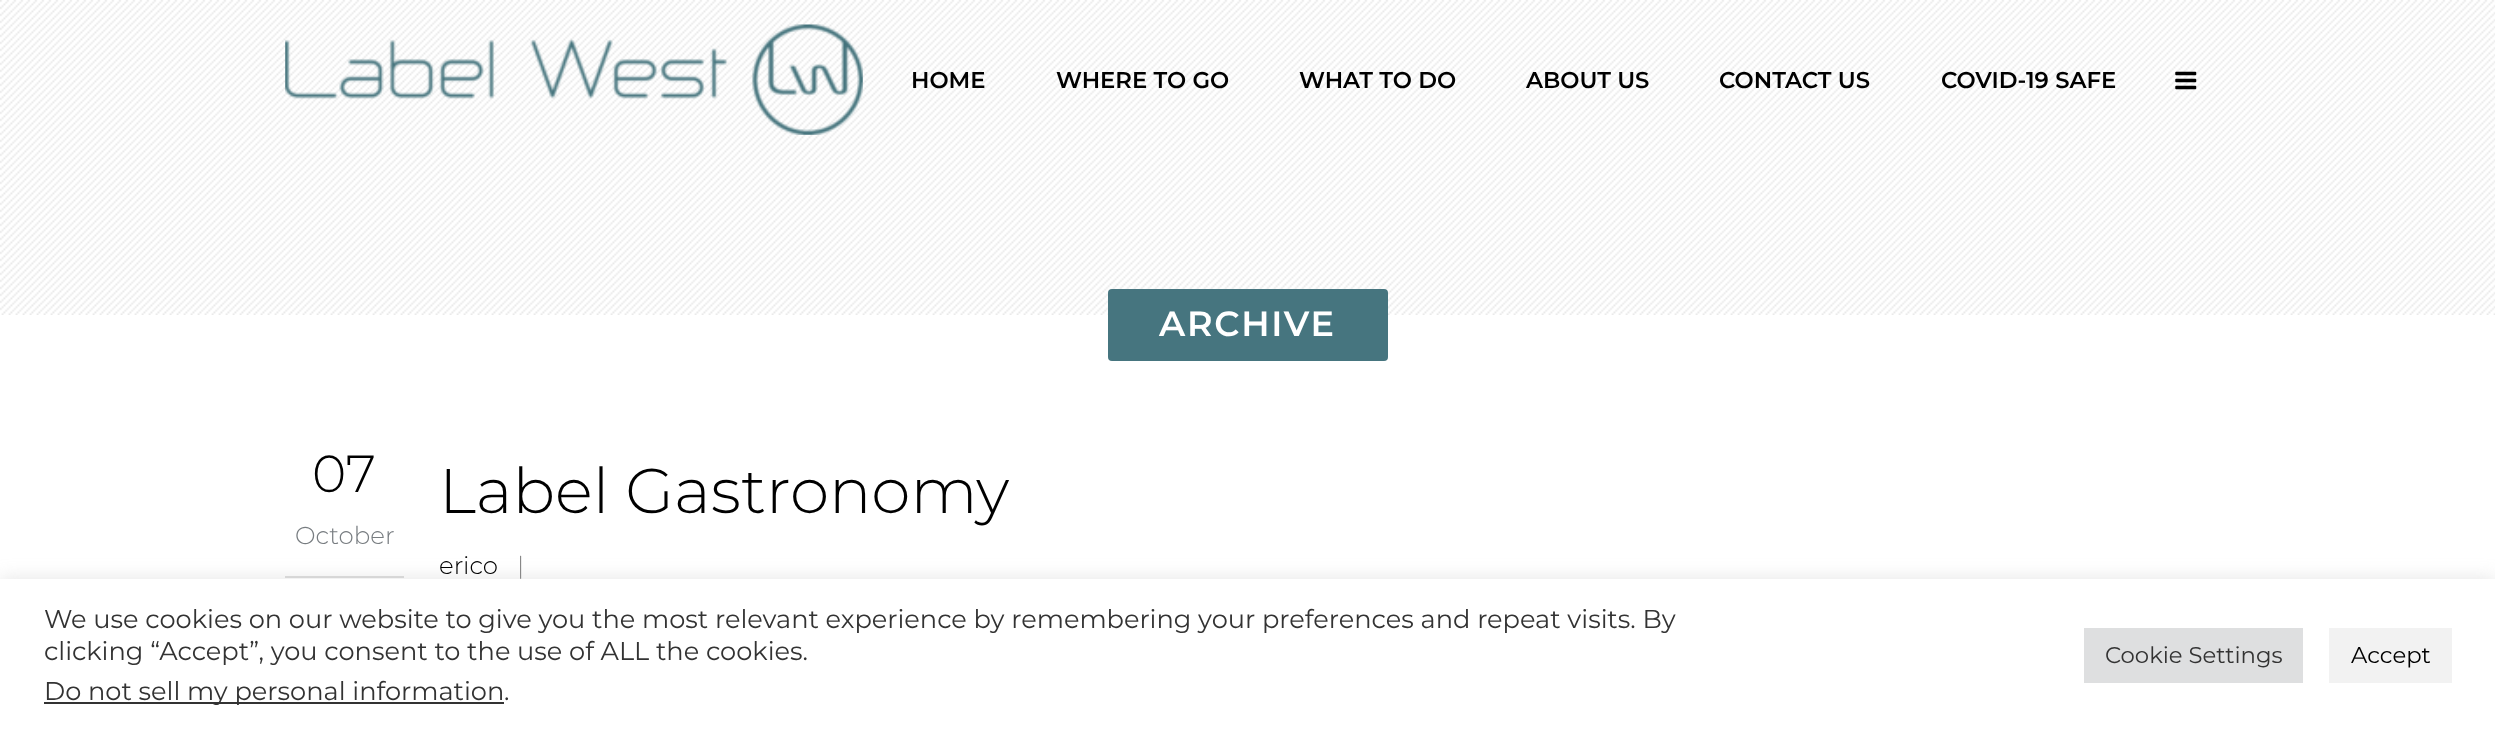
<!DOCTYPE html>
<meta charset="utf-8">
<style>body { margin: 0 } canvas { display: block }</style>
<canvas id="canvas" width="2495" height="731"></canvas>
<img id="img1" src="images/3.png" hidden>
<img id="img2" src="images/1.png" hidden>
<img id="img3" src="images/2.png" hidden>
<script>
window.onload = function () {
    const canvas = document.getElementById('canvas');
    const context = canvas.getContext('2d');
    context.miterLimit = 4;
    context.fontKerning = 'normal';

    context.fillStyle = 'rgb(255, 255, 255)';
    context.fillRect(0, 0, 2495, 731);
    context.drawImage(document.getElementById('img1'), 0, 0, 2495, 315);
    context.drawImage(document.getElementById('img2'), 285, 24, 578, 111);
    context.drawImage(document.getElementById('img3'), 2175, 71, 22, 19);
    context.fillStyle = 'rgb(70, 117, 127)';
    context.beginPath();
    context.roundRect(1108, 289, 280, 72, 4);
    context.fill();
    context.fillStyle = 'rgb(221, 221, 221)';
    context.fillRect(285, 576, 119, 2);
    context.fillStyle = 'rgba(172, 171, 171, 0.3)';
    context.filter = 'blur(9px)';
    context.beginPath();
    context.rect(0, 578, 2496, 152);
    context.fill();
    context.filter = 'none';
    context.fillStyle = 'rgb(255, 255, 255)';
    context.fillRect(0, 579, 2495, 152);
    context.fillStyle = 'rgb(51, 51, 51)';
    context.fillRect(44, 702, 460, 2);
    context.fillStyle = 'rgb(222, 223, 224)';
    context.fillRect(2084, 628, 219, 55);
    context.fillStyle = 'rgb(242, 242, 242)';
    context.fillRect(2329, 628, 123, 55);
    context.font = '600 22.75px Montserrat';
    context.fillStyle = 'rgb(0, 0, 0)';
    context.fillText('HOME', 911, 88);
    context.fillText('WHERE TO GO', 1056, 88);
    context.fillText('WHAT TO DO', 1299, 88);
    context.fillText('ABOUT US', 1526, 88);
    context.fillText('CONTACT US', 1719, 88);
    context.fillText('COVID-19 SAFE', 1941, 88);
    context.letterSpacing = '1.75px';
    context.font = '600 35px Montserrat';
    context.fillStyle = 'rgb(255, 255, 255)';
    context.fillText('ARCHIVE', 1159, 336);
    context.letterSpacing = '0px';
    context.font = '300 52px Montserrat';
    context.fillStyle = 'rgb(0, 0, 0)';
    context.fillText('07', 312, 492);
    context.font = '300 24.5px Montserrat';
    context.fillStyle = 'rgb(120, 125, 129)';
    context.fillText('October', 295, 544);
    context.font = '300 63px Montserrat';
    context.fillStyle = 'rgb(0, 0, 0)';
    context.fillText('Label Gastronomy', 439, 513);
    context.font = '300 24.5px Montserrat';
    context.fillText('erico', 439, 574);
    context.fillStyle = 'rgb(136, 136, 136)';
    context.fillText('|', 517, 574);
    context.font = '25.67px Montserrat';
    context.fillStyle = 'rgb(51, 51, 51)';
    context.fillText('We use cookies on our website to give you the most relevant experience by remembering your preferences and repeat visits. By', 44, 628);
    context.fillText('clicking “Accept”, you consent to the use of ALL the cookies.', 44, 660);
    context.fillText('Do not sell my personal information', 44, 700);
    context.fillText('.', 504, 700);
    context.font = '22.75px Montserrat';
    context.fillText('Cookie Settings', 2105, 663);
    context.fillStyle = 'rgb(0, 0, 0)';
    context.fillText('Accept', 2351, 663);
};
</script>
